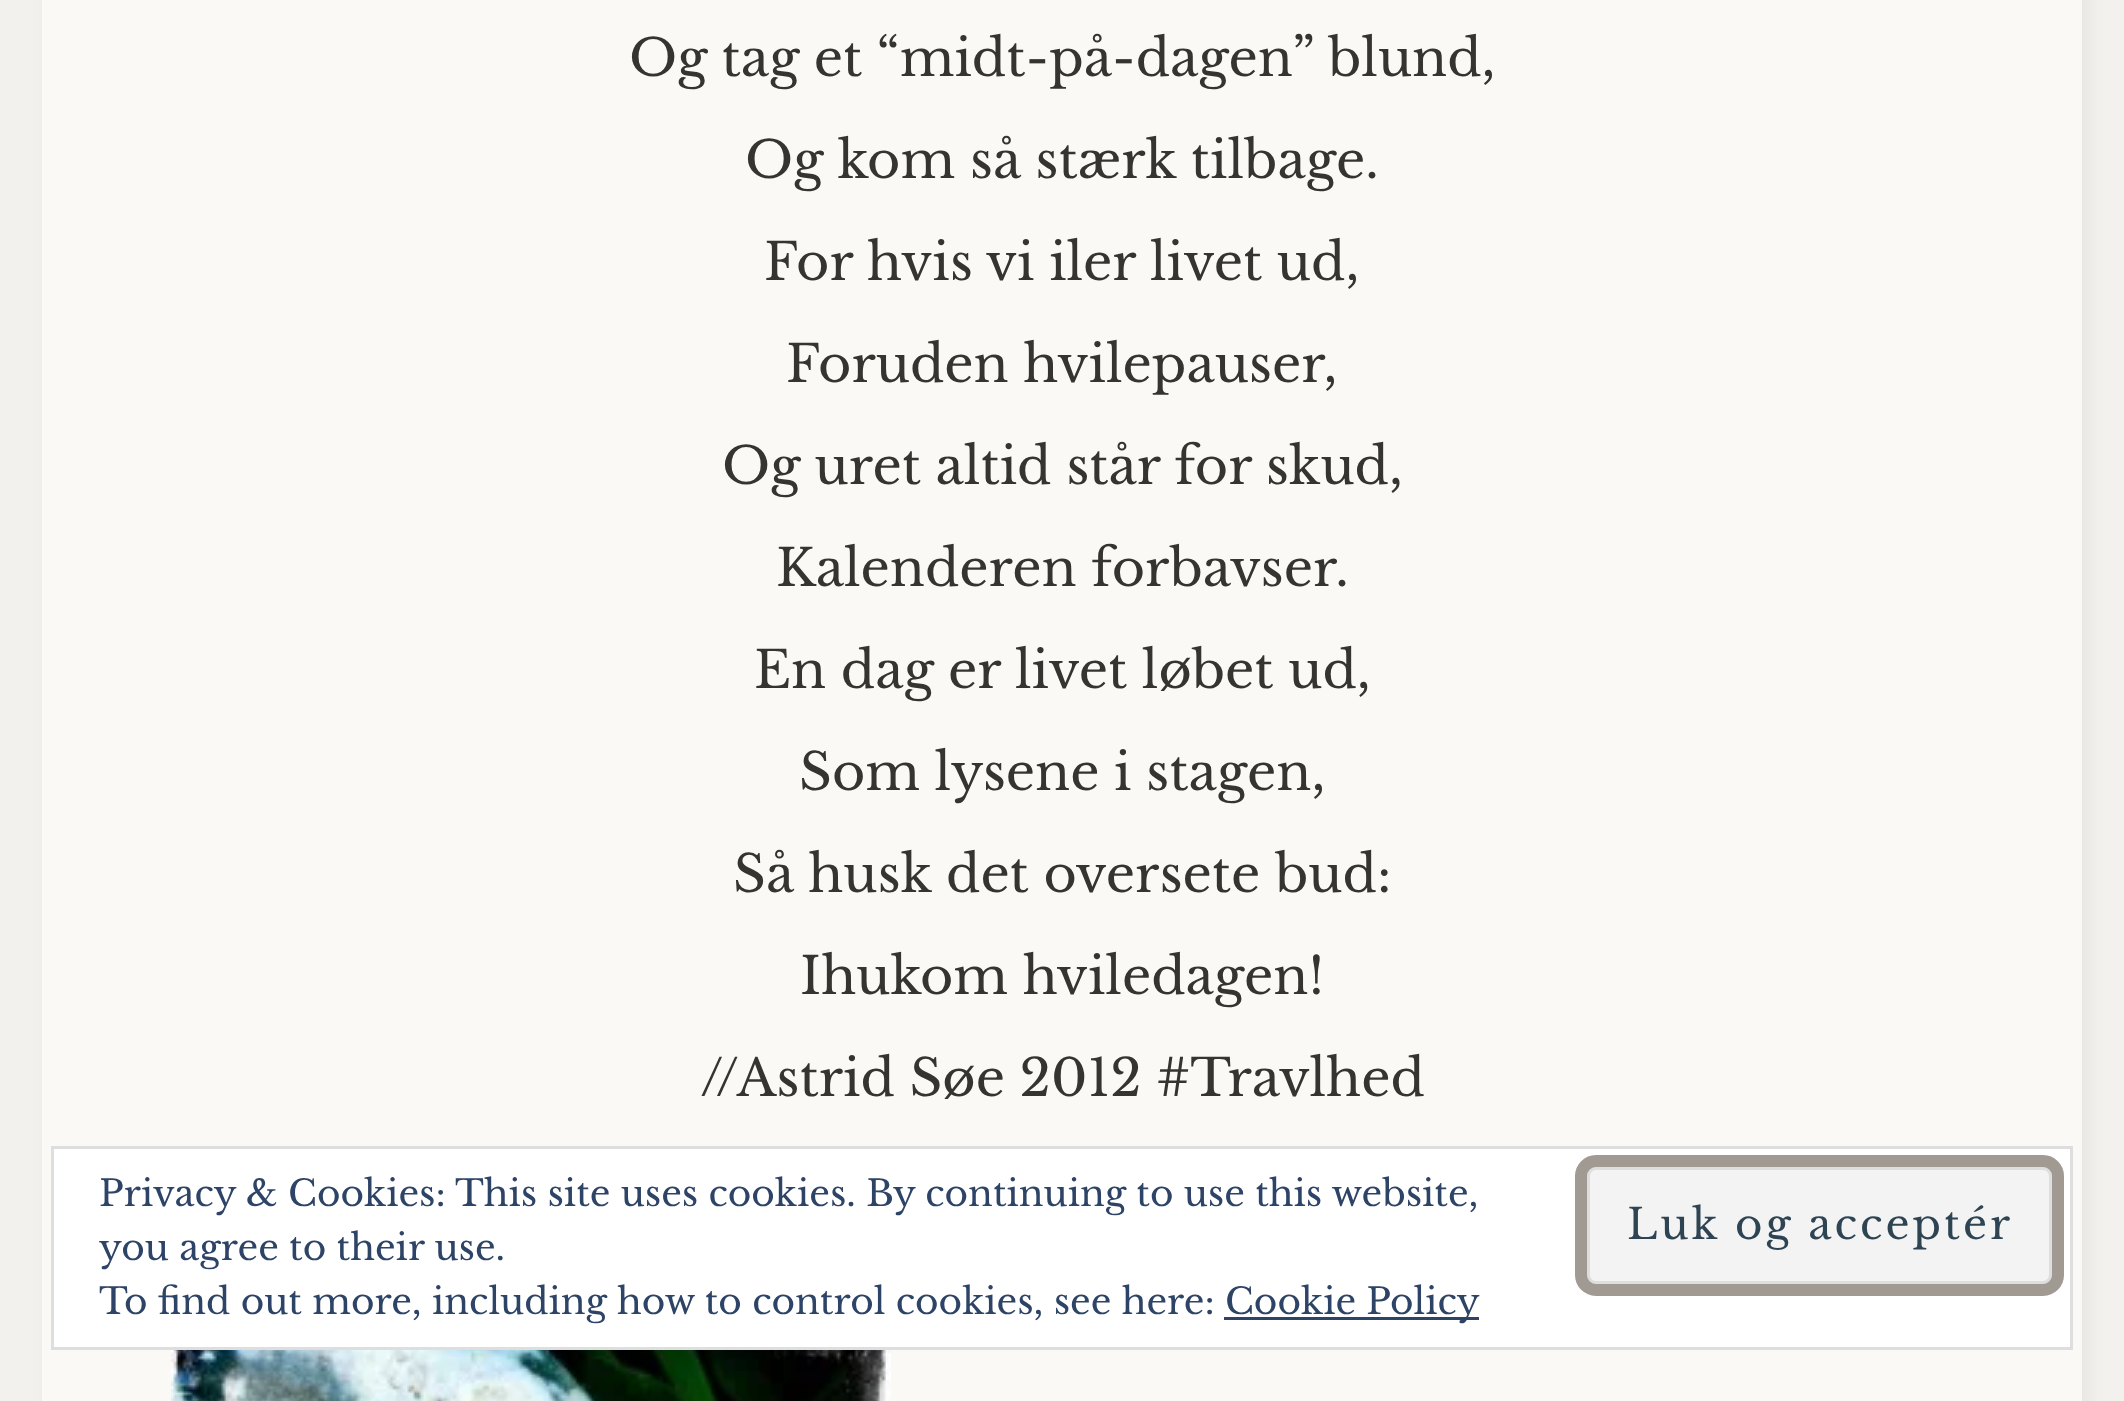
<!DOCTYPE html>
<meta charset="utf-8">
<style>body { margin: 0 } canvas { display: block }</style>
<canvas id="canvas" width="2124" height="1401"></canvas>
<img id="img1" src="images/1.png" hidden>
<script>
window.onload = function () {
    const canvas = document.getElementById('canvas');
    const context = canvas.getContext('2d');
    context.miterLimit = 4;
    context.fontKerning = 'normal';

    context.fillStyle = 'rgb(242, 241, 237)';
    context.fillRect(0, 0, 2124, 1401);
    context.fillStyle = 'rgba(0, 0, 0, 0.05)';
    context.filter = 'blur(9px)';
    context.beginPath();
    context.rect(48, -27, 2040, 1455);
    context.fill();
    context.filter = 'none';
    context.fillStyle = 'rgb(250, 249, 245)';
    context.fillRect(42, 0, 2040, 1401);
    context.drawImage(document.getElementById('img1'), 171, 1350, 720, 51);
    context.fillStyle = 'rgb(255, 255, 255)';
    context.beginPath();
    context.rect(52.5, 1147.5, 2019, 201);
    context.fill();
    context.strokeStyle = 'rgb(222, 222, 222)';
    context.lineWidth = 3;
    context.stroke();
    context.fillStyle = 'rgb(243, 243, 243)';
    context.beginPath();
    context.roundRect(1588.5, 1168.5, 462, 114, 7.5);
    context.fill();
    context.stroke();
    context.beginPath();
    context.roundRect(1581, 1161, 477, 129, 15);
    context.strokeStyle = 'rgb(160, 154, 146)';
    context.lineWidth = 12;
    context.stroke();
    context.fillStyle = 'rgb(46, 68, 103)';
    context.fillRect(1224, 1317, 255, 3);
    context.font = '51px Libre Baskerville';
    context.fillStyle = 'rgb(54, 52, 49)';
    context.fillText('Og tag et “midt-på-dagen” blund,', 629, 76);
    context.fillText('Og kom så stærk tilbage.', 745, 178);
    context.fillText('For hvis vi iler livet ud,', 764, 280);
    context.fillText('Foruden hvilepauser,', 786, 382);
    context.fillText('Og uret altid står for skud,', 722, 484);
    context.fillText('Kalenderen forbavser.', 776, 586);
    context.fillText('En dag er livet løbet ud,', 754, 688);
    context.fillText('Som lysene i stagen,', 799, 790);
    context.fillText('Så husk det oversete bud:', 733, 892);
    context.fillText('Ihukom hviledagen!', 800, 994);
    context.fillText('//Astrid Søe 2012 #Travlhed', 700, 1096);
    context.font = '36px Libre Baskerville';
    context.fillStyle = 'rgb(46, 68, 103)';
    context.fillText('Privacy & Cookies: This site uses cookies. By continuing to use this website,', 99, 1206);
    context.fillText('you agree to their use.', 99, 1260);
    context.letterSpacing = '3px';
    context.font = '42px Libre Baskerville';
    context.fillStyle = 'rgb(46, 68, 83)';
    context.fillText('Luk og acceptér', 1627, 1239);
    context.letterSpacing = '0px';
    context.font = '36px Libre Baskerville';
    context.fillStyle = 'rgb(46, 68, 103)';
    context.fillText('To find out more, including how to control cookies, see here:', 99, 1314);
    context.fillText('Cookie Policy', 1225, 1314);
};
</script>
